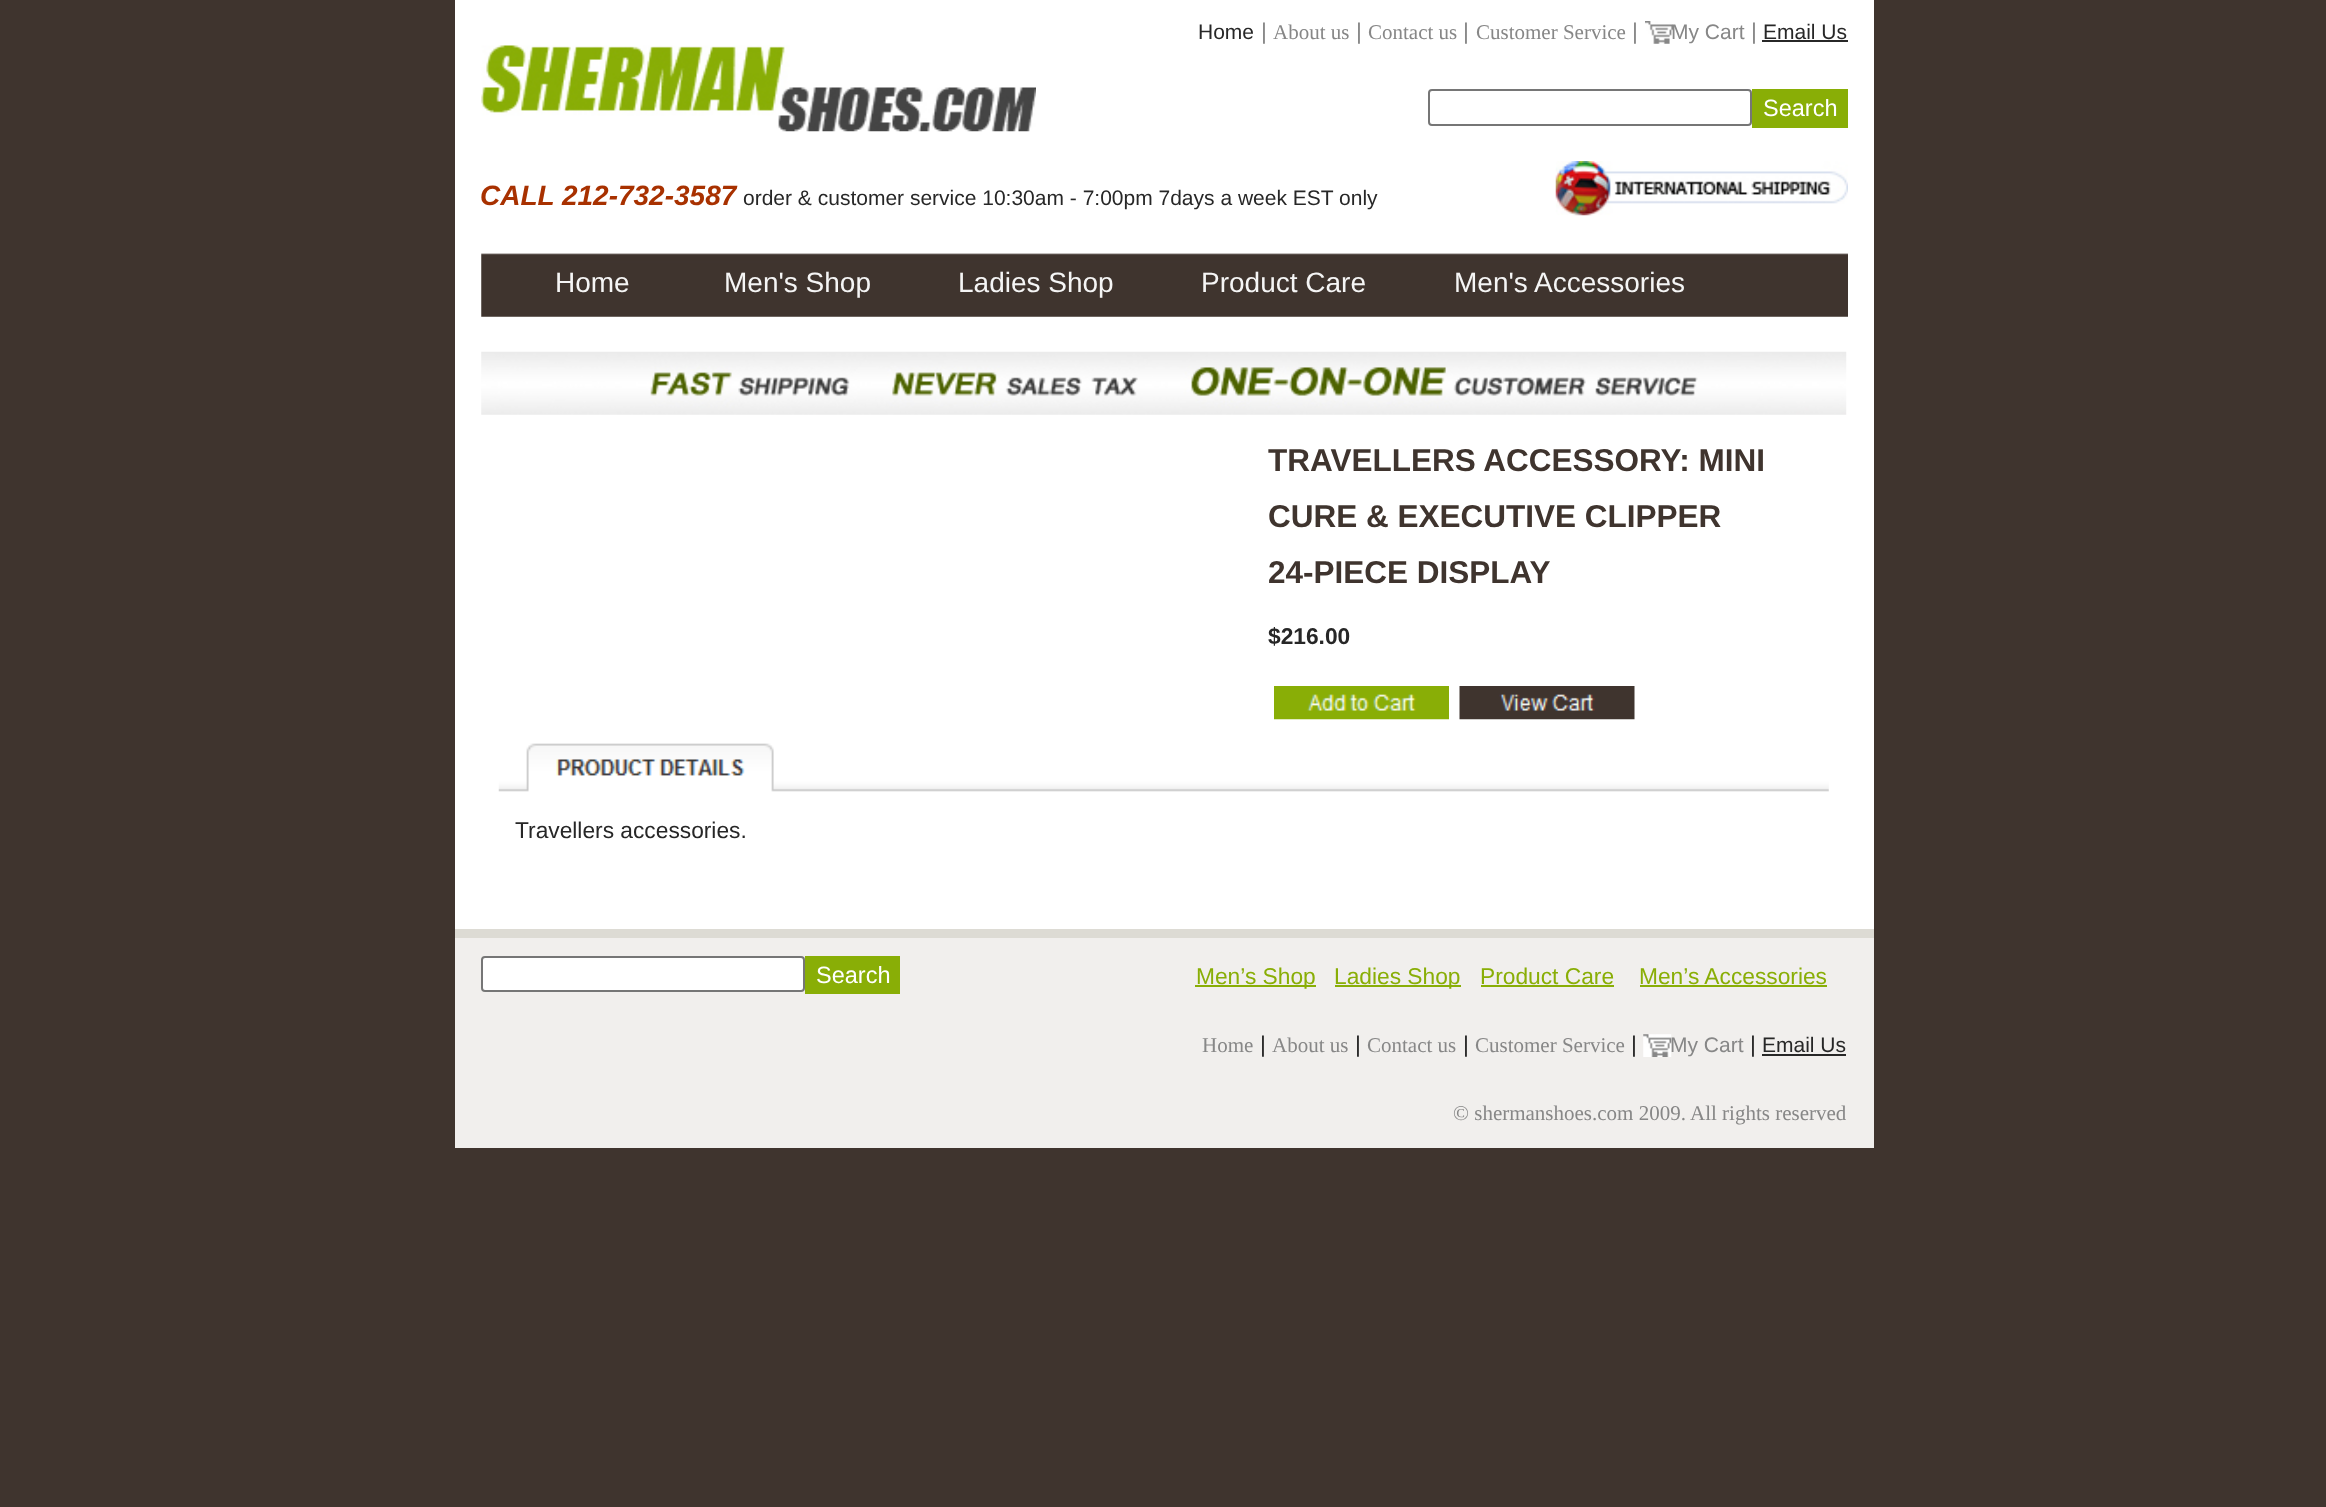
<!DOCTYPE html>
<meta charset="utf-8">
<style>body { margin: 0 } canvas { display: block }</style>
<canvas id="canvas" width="2326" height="1507"></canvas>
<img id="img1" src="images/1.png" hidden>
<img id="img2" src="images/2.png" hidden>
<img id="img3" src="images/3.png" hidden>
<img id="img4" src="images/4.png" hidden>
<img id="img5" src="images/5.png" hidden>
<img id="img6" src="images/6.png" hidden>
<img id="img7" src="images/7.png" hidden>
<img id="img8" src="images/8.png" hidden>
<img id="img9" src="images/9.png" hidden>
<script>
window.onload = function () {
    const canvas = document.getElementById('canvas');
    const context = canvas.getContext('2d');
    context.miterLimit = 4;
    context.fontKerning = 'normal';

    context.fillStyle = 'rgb(63, 52, 46)';
    context.fillRect(0, 0, 2326, 1507);
    context.fillStyle = 'rgb(255, 255, 255)';
    context.fillRect(455, 0, 1419, 929);
    context.drawImage(document.getElementById('img1'), 481, 253, 1367, 64);
    context.drawImage(document.getElementById('img2'), 1645, 21, 28, 23);
    context.fillStyle = 'rgb(39, 39, 39)';
    context.fillRect(1762, 40, 86, 2);
    context.drawImage(document.getElementById('img3'), 481, 45, 555, 87);
    context.beginPath();
    context.roundRect(1429, 90, 322, 35, 3);
    context.strokeStyle = 'rgb(118, 118, 118)';
    context.lineWidth = 2;
    context.stroke();
    context.fillStyle = 'rgb(137, 174, 6)';
    context.fillRect(1752, 89, 96, 39);
    context.drawImage(document.getElementById('img4'), 1555, 161, 293, 55);
    context.drawImage(document.getElementById('img5'), 481, 351, 1366, 64);
    context.drawImage(document.getElementById('img6'), 1274, 686, 175, 34);
    context.drawImage(document.getElementById('img7'), 1459, 686, 176, 34);
    context.drawImage(document.getElementById('img8'), 498, 743, 1331, 49);
    context.fillStyle = 'rgb(241, 239, 237)';
    context.fillRect(455, 938, 1419, 210);
    context.fillStyle = 'rgb(221, 219, 212)';
    context.fillRect(455, 929, 1419, 9);
    context.fillStyle = 'rgb(255, 255, 255)';
    context.beginPath();
    context.roundRect(482, 957, 322, 34, 3);
    context.fill();
    context.stroke();
    context.fillStyle = 'rgb(137, 174, 6)';
    context.fillRect(805, 956, 95, 38);
    context.fillRect(1195, 985, 121, 2);
    context.fillRect(1335, 985, 126, 2);
    context.fillRect(1481, 985, 133, 2);
    context.fillRect(1640, 985, 187, 2);
    context.drawImage(document.getElementById('img9'), 1643, 1034, 29, 23);
    context.fillStyle = 'rgb(39, 39, 39)';
    context.fillRect(1762, 1054, 84, 2);
    context.font = '21px Liberation Sans';
    context.fillText('Home', 1198, 39);
    context.font = '22.75px Liberation Sans';
    context.fillStyle = 'rgb(135, 135, 135)';
    context.fillText('|', 1261, 39);
    context.font = '21px Liberation Serif';
    context.fillText('About us', 1273, 39);
    context.font = '22.75px Liberation Sans';
    context.fillText('|', 1356, 39);
    context.font = '21px Liberation Serif';
    context.fillText('Contact us', 1368, 39);
    context.font = '22.75px Liberation Sans';
    context.fillText('|', 1463, 39);
    context.font = '21px Liberation Serif';
    context.fillText('Customer Service', 1476, 39);
    context.font = '22.75px Liberation Sans';
    context.fillText('|', 1632, 39);
    context.font = '21px Liberation Sans';
    context.fillText('My Cart', 1671, 39);
    context.font = '22.75px Liberation Sans';
    context.fillText('|', 1751, 39);
    context.font = '21px Liberation Sans';
    context.fillStyle = 'rgb(39, 39, 39)';
    context.fillText('Email Us', 1763, 39);
    context.font = '23.5px Liberation Sans';
    context.fillStyle = 'rgb(255, 255, 255)';
    context.fillText('Search', 1763, 116);
    context.font = 'italic bold 28px Liberation Sans';
    context.fillStyle = 'rgb(168, 49, 0)';
    context.fillText('CALL 212-732-3587', 480, 205);
    context.font = '21px Liberation Sans';
    context.fillStyle = 'rgb(39, 39, 39)';
    context.fillText('order & customer service 10:30am - 7:00pm 7days a week EST only', 743, 205);
    context.font = '28px Liberation Sans';
    context.fillStyle = 'rgb(245, 245, 245)';
    context.fillText('Home', 555, 292);
    context.fillText('Men\'s Shop', 724, 292);
    context.fillText('Ladies Shop', 958, 292);
    context.fillText('Product Care', 1201, 292);
    context.fillText('Men\'s Accessories', 1454, 292);
    context.font = 'bold 31.5px Liberation Sans';
    context.fillStyle = 'rgb(63, 52, 46)';
    context.fillText('TRAVELLERS ACCESSORY: MINI', 1268, 471);
    context.fillText('CURE & EXECUTIVE CLIPPER', 1268, 527);
    context.fillText('24-PIECE DISPLAY', 1268, 583);
    context.font = 'bold 22.75px Liberation Sans';
    context.fillStyle = 'rgb(39, 39, 39)';
    context.fillText('$216.00', 1268, 644);
    context.font = '22.75px Liberation Sans';
    context.fillText('Travellers accessories.', 515, 838);
    context.font = '23.5px Liberation Sans';
    context.fillStyle = 'rgb(255, 255, 255)';
    context.fillText('Search', 816, 983);
    context.font = '22.75px Liberation Sans';
    context.fillStyle = 'rgb(137, 174, 6)';
    context.fillText('Men’s Shop', 1196, 984);
    context.fillText('Ladies Shop', 1334, 984);
    context.fillText('Product Care', 1480, 984);
    context.fillText('Men’s Accessories', 1639, 984);
    context.font = '21px Liberation Serif';
    context.fillStyle = 'rgb(135, 135, 135)';
    context.fillText('Home', 1202, 1052);
    context.font = '22.75px Liberation Sans';
    context.fillStyle = 'rgb(39, 39, 39)';
    context.fillText('|', 1260, 1052);
    context.font = '21px Liberation Serif';
    context.fillStyle = 'rgb(135, 135, 135)';
    context.fillText('About us', 1272, 1052);
    context.font = '22.75px Liberation Sans';
    context.fillStyle = 'rgb(39, 39, 39)';
    context.fillText('|', 1355, 1052);
    context.font = '21px Liberation Serif';
    context.fillStyle = 'rgb(135, 135, 135)';
    context.fillText('Contact us', 1367, 1052);
    context.font = '22.75px Liberation Sans';
    context.fillStyle = 'rgb(39, 39, 39)';
    context.fillText('|', 1463, 1052);
    context.font = '21px Liberation Serif';
    context.fillStyle = 'rgb(135, 135, 135)';
    context.fillText('Customer Service', 1475, 1052);
    context.font = '22.75px Liberation Sans';
    context.fillStyle = 'rgb(39, 39, 39)';
    context.fillText('|', 1631, 1052);
    context.font = '21px Liberation Sans';
    context.fillStyle = 'rgb(135, 135, 135)';
    context.fillText('My Cart', 1670, 1052);
    context.font = '22.75px Liberation Sans';
    context.fillStyle = 'rgb(39, 39, 39)';
    context.fillText('|', 1750, 1052);
    context.font = '21px Liberation Sans';
    context.fillText('Email Us', 1762, 1052);
    context.font = '21px Liberation Serif';
    context.fillStyle = 'rgb(135, 135, 135)';
    context.fillText('© shermanshoes.com 2009. All rights reserved', 1453, 1120);
};
</script>
